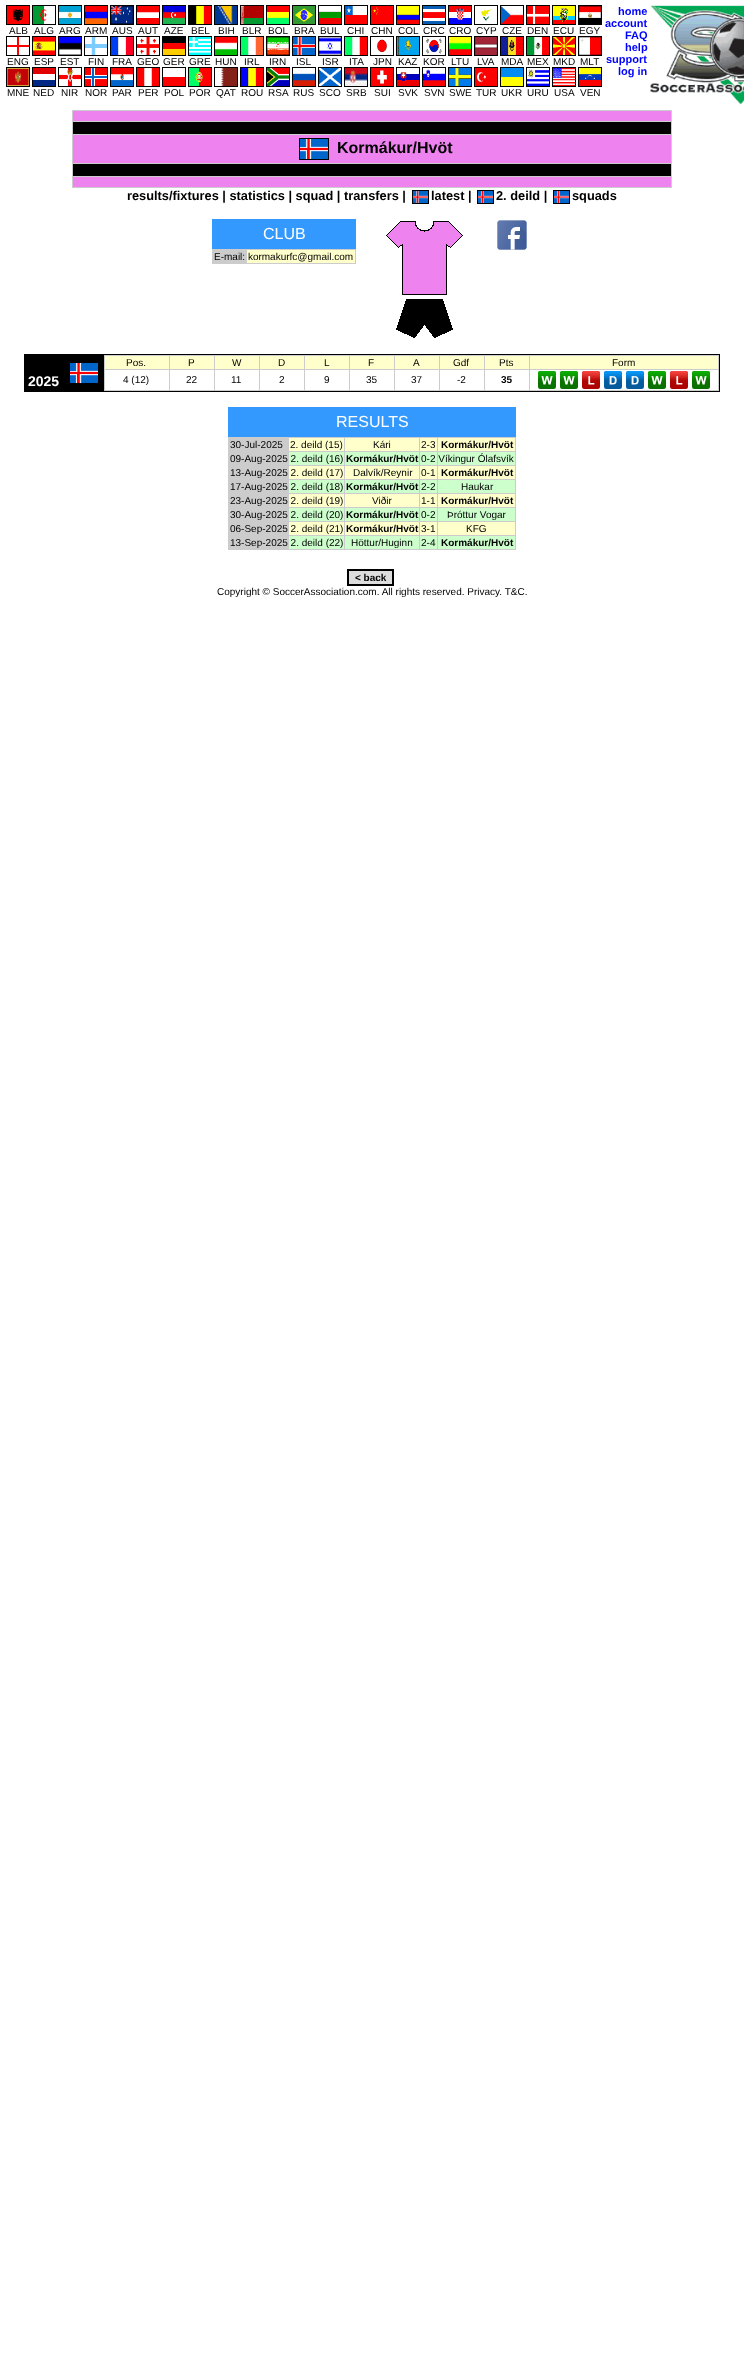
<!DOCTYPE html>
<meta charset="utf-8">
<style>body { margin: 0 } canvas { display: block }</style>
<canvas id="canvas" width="744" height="2356"></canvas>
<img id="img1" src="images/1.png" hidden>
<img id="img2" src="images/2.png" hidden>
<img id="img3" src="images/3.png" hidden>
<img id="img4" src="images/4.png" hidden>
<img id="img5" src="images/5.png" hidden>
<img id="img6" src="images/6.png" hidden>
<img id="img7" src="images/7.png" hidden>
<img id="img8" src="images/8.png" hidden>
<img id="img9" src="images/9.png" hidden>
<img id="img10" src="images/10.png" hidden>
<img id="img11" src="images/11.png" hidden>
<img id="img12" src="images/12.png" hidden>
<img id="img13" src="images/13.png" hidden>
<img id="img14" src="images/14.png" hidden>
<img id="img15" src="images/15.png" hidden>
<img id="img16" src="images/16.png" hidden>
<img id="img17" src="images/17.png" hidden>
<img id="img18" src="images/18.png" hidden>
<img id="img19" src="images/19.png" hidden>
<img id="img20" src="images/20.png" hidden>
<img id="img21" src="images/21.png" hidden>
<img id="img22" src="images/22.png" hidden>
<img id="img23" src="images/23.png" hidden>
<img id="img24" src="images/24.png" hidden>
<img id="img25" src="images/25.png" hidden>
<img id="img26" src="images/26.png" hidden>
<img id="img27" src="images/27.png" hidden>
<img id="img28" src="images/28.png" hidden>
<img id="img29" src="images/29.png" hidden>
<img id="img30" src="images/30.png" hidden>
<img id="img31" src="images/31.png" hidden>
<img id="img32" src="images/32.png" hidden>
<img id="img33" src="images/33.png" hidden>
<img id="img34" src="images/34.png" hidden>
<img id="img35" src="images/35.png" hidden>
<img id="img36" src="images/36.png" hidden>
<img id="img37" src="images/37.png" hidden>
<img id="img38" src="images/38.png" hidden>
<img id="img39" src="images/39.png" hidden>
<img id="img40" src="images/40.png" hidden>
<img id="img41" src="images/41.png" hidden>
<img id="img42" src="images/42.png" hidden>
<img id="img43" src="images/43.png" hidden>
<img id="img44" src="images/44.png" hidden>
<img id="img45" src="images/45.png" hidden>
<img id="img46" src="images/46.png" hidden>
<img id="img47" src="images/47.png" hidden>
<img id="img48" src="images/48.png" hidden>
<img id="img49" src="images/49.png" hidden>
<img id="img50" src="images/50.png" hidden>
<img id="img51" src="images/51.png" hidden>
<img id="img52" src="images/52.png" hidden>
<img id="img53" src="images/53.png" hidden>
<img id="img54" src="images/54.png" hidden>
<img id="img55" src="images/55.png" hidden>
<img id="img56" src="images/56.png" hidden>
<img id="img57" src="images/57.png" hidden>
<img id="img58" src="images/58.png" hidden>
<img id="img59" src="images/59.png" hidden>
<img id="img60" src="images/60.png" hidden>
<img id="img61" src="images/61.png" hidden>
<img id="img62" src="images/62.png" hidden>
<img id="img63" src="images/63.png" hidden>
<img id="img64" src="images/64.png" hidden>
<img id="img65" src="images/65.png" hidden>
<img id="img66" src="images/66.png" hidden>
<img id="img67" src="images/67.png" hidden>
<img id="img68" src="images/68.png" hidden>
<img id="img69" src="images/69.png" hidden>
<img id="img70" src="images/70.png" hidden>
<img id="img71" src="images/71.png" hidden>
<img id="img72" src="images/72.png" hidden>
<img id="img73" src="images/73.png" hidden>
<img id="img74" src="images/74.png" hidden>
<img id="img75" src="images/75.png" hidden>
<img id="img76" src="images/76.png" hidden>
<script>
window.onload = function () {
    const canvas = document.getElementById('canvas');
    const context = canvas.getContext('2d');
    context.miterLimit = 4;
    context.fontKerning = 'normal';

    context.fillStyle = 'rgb(255, 255, 255)';
    context.fillRect(0, 0, 744, 2356);
    context.strokeStyle = 'rgb(0, 0, 0)';
    context.strokeRect(6.5, 5.5, 23, 19);
    context.drawImage(document.getElementById('img1'), 7, 6, 22, 18);
    context.strokeRect(32.5, 5.5, 23, 19);
    context.drawImage(document.getElementById('img2'), 33, 6, 14, 18);
    context.strokeRect(58.5, 5.5, 23, 19);
    context.drawImage(document.getElementById('img3'), 59, 6, 22, 18);
    context.strokeRect(84.5, 5.5, 23, 19);
    context.drawImage(document.getElementById('img4'), 85, 6, 22, 18);
    context.strokeRect(110.5, 5.5, 23, 19);
    context.drawImage(document.getElementById('img5'), 111, 6, 22, 18);
    context.strokeRect(136.5, 5.5, 23, 19);
    context.drawImage(document.getElementById('img6'), 137, 6, 22, 18);
    context.strokeRect(162.5, 5.5, 23, 19);
    context.drawImage(document.getElementById('img7'), 163, 6, 22, 18);
    context.strokeRect(188.5, 5.5, 23, 19);
    context.drawImage(document.getElementById('img8'), 189, 6, 22, 18);
    context.strokeRect(214.5, 5.5, 23, 19);
    context.drawImage(document.getElementById('img9'), 215, 6, 22, 18);
    context.strokeRect(240.5, 5.5, 23, 19);
    context.drawImage(document.getElementById('img10'), 241, 6, 22, 18);
    context.strokeRect(266.5, 5.5, 23, 19);
    context.drawImage(document.getElementById('img11'), 267, 6, 22, 18);
    context.strokeRect(292.5, 5.5, 23, 19);
    context.drawImage(document.getElementById('img12'), 293, 6, 22, 18);
    context.strokeRect(318.5, 5.5, 23, 19);
    context.drawImage(document.getElementById('img13'), 319, 11, 22, 13);
    context.strokeRect(344.5, 5.5, 23, 19);
    context.drawImage(document.getElementById('img14'), 345, 6, 22, 18);
    context.strokeRect(370.5, 5.5, 23, 19);
    context.drawImage(document.getElementById('img15'), 371, 6, 22, 18);
    context.strokeRect(396.5, 5.5, 23, 19);
    context.drawImage(document.getElementById('img16'), 397, 6, 22, 18);
    context.strokeRect(422.5, 5.5, 23, 19);
    context.drawImage(document.getElementById('img17'), 423, 6, 22, 18);
    context.strokeRect(448.5, 5.5, 23, 19);
    context.drawImage(document.getElementById('img18'), 449, 6, 22, 18);
    context.strokeRect(474.5, 5.5, 23, 19);
    context.drawImage(document.getElementById('img19'), 481, 9, 11, 12);
    context.strokeRect(500.5, 5.5, 23, 19);
    context.drawImage(document.getElementById('img20'), 501, 6, 22, 18);
    context.strokeRect(526.5, 5.5, 23, 19);
    context.drawImage(document.getElementById('img21'), 527, 6, 22, 18);
    context.strokeRect(552.5, 5.5, 23, 19);
    context.drawImage(document.getElementById('img22'), 553, 6, 22, 18);
    context.strokeRect(578.5, 5.5, 23, 19);
    context.drawImage(document.getElementById('img23'), 579, 6, 22, 18);
    context.strokeRect(6.5, 36.5, 23, 19);
    context.drawImage(document.getElementById('img24'), 7, 37, 22, 18);
    context.strokeRect(32.5, 36.5, 23, 19);
    context.drawImage(document.getElementById('img25'), 33, 37, 22, 18);
    context.strokeRect(58.5, 36.5, 23, 19);
    context.drawImage(document.getElementById('img26'), 59, 37, 22, 18);
    context.strokeRect(84.5, 36.5, 23, 19);
    context.drawImage(document.getElementById('img27'), 85, 37, 22, 18);
    context.strokeRect(110.5, 36.5, 23, 19);
    context.drawImage(document.getElementById('img28'), 111, 37, 22, 18);
    context.strokeRect(136.5, 36.5, 23, 19);
    context.drawImage(document.getElementById('img29'), 137, 37, 22, 18);
    context.strokeRect(162.5, 36.5, 23, 19);
    context.drawImage(document.getElementById('img30'), 163, 37, 22, 18);
    context.strokeRect(188.5, 36.5, 23, 19);
    context.drawImage(document.getElementById('img31'), 189, 37, 22, 18);
    context.strokeRect(214.5, 36.5, 23, 19);
    context.drawImage(document.getElementById('img32'), 215, 37, 22, 18);
    context.strokeRect(240.5, 36.5, 23, 19);
    context.drawImage(document.getElementById('img33'), 241, 37, 22, 18);
    context.strokeRect(266.5, 36.5, 23, 19);
    context.drawImage(document.getElementById('img34'), 267, 37, 22, 18);
    context.strokeRect(292.5, 36.5, 23, 19);
    context.drawImage(document.getElementById('img35'), 293, 37, 22, 18);
    context.strokeRect(318.5, 36.5, 23, 19);
    context.drawImage(document.getElementById('img36'), 319, 37, 22, 18);
    context.strokeRect(344.5, 36.5, 23, 19);
    context.drawImage(document.getElementById('img37'), 345, 37, 22, 18);
    context.strokeRect(370.5, 36.5, 23, 19);
    context.drawImage(document.getElementById('img38'), 377, 39, 10, 13);
    context.strokeRect(396.5, 36.5, 23, 19);
    context.drawImage(document.getElementById('img39'), 397, 37, 22, 18);
    context.strokeRect(422.5, 36.5, 23, 19);
    context.drawImage(document.getElementById('img40'), 426, 38, 16, 16);
    context.strokeRect(448.5, 36.5, 23, 19);
    context.drawImage(document.getElementById('img41'), 449, 37, 22, 18);
    context.strokeRect(474.5, 36.5, 23, 19);
    context.drawImage(document.getElementById('img42'), 475, 37, 22, 18);
    context.strokeRect(500.5, 36.5, 23, 19);
    context.drawImage(document.getElementById('img43'), 501, 37, 22, 18);
    context.strokeRect(526.5, 36.5, 23, 19);
    context.drawImage(document.getElementById('img44'), 527, 37, 22, 18);
    context.strokeRect(552.5, 36.5, 23, 19);
    context.drawImage(document.getElementById('img45'), 553, 37, 22, 18);
    context.strokeRect(578.5, 36.5, 23, 19);
    context.drawImage(document.getElementById('img46'), 579, 37, 22, 18);
    context.strokeRect(6.5, 67.5, 23, 19);
    context.drawImage(document.getElementById('img47'), 7, 68, 22, 18);
    context.strokeRect(32.5, 67.5, 23, 19);
    context.drawImage(document.getElementById('img48'), 33, 68, 22, 18);
    context.strokeRect(58.5, 67.5, 23, 19);
    context.drawImage(document.getElementById('img49'), 59, 68, 22, 18);
    context.strokeRect(84.5, 67.5, 23, 19);
    context.drawImage(document.getElementById('img50'), 85, 68, 22, 18);
    context.strokeRect(110.5, 67.5, 23, 19);
    context.drawImage(document.getElementById('img51'), 111, 68, 22, 18);
    context.strokeRect(136.5, 67.5, 23, 19);
    context.drawImage(document.getElementById('img52'), 137, 68, 22, 18);
    context.strokeRect(162.5, 67.5, 23, 19);
    context.fillStyle = 'rgb(255, 0, 0)';
    context.fillRect(163, 77, 22, 9);
    context.strokeRect(188.5, 67.5, 23, 19);
    context.drawImage(document.getElementById('img53'), 189, 68, 22, 18);
    context.strokeRect(214.5, 67.5, 23, 19);
    context.drawImage(document.getElementById('img54'), 221, 68, 16, 18);
    context.strokeRect(240.5, 67.5, 23, 19);
    context.drawImage(document.getElementById('img55'), 241, 68, 22, 18);
    context.strokeRect(266.5, 67.5, 23, 19);
    context.drawImage(document.getElementById('img56'), 267, 68, 22, 18);
    context.strokeRect(292.5, 67.5, 23, 19);
    context.drawImage(document.getElementById('img57'), 293, 73, 22, 13);
    context.strokeRect(318.5, 67.5, 23, 19);
    context.drawImage(document.getElementById('img58'), 319, 68, 22, 18);
    context.strokeRect(344.5, 67.5, 23, 19);
    context.drawImage(document.getElementById('img59'), 345, 68, 22, 18);
    context.strokeRect(370.5, 67.5, 23, 19);
    context.drawImage(document.getElementById('img60'), 371, 68, 22, 18);
    context.strokeRect(396.5, 67.5, 23, 19);
    context.drawImage(document.getElementById('img61'), 397, 72, 22, 14);
    context.strokeRect(422.5, 67.5, 23, 19);
    context.drawImage(document.getElementById('img62'), 423, 69, 22, 17);
    context.strokeRect(448.5, 67.5, 23, 19);
    context.drawImage(document.getElementById('img63'), 449, 68, 22, 18);
    context.strokeRect(474.5, 67.5, 23, 19);
    context.drawImage(document.getElementById('img64'), 475, 68, 22, 18);
    context.strokeRect(500.5, 67.5, 23, 19);
    context.drawImage(document.getElementById('img65'), 501, 68, 22, 18);
    context.strokeRect(526.5, 67.5, 23, 19);
    context.drawImage(document.getElementById('img66'), 527, 69, 22, 17);
    context.strokeRect(552.5, 67.5, 23, 19);
    context.drawImage(document.getElementById('img67'), 553, 68, 22, 18);
    context.strokeRect(578.5, 67.5, 23, 19);
    context.drawImage(document.getElementById('img68'), 579, 68, 22, 18);
    context.drawImage(document.getElementById('img69'), 650, 5, 94, 100);
    context.fillStyle = 'rgb(204, 204, 204)';
    context.fillRect(72, 110, 600, 78);
    context.fillStyle = 'rgb(238, 130, 238)';
    context.fillRect(73, 111, 598, 10);
    context.fillStyle = 'rgb(0, 0, 0)';
    context.fillRect(73, 122, 598, 12);
    context.fillStyle = 'rgb(238, 130, 238)';
    context.fillRect(73, 135, 598, 28);
    context.strokeRect(299.5, 138.5, 29, 21);
    context.drawImage(document.getElementById('img70'), 300, 139, 28, 20);
    context.fillStyle = 'rgb(0, 0, 0)';
    context.fillRect(73, 164, 598, 12);
    context.fillStyle = 'rgb(238, 130, 238)';
    context.fillRect(73, 177, 598, 10);
    context.strokeRect(412.5, 190.5, 16, 13);
    context.strokeRect(477.5, 190.5, 16, 13);
    context.strokeRect(553.5, 190.5, 16, 13);
    context.drawImage(document.getElementById('img71'), 413, 191, 15, 12);
    context.drawImage(document.getElementById('img71'), 478, 191, 15, 12);
    context.drawImage(document.getElementById('img71'), 554, 191, 15, 12);
    context.fillStyle = 'rgb(204, 204, 204)';
    context.fillRect(212, 249, 144, 15);
    context.fillStyle = 'rgb(51, 153, 255)';
    context.fillRect(212, 219, 144, 30);
    context.fillStyle = 'rgb(255, 255, 204)';
    context.fillRect(247, 250, 108, 13);
    context.drawImage(document.getElementById('img72'), 386, 221, 77, 117);
    context.drawImage(document.getElementById('img73'), 497, 220, 30, 30);
    context.fillStyle = 'rgb(0, 0, 0)';
    context.fillRect(24, 354, 696, 38);
    context.drawImage(document.getElementById('img70'), 70, 363, 28, 20);
    context.fillStyle = 'rgb(255, 255, 204)';
    context.fillRect(105, 356, 613, 13);
    context.fillStyle = 'rgb(204, 204, 204)';
    context.fillRect(529, 355, 190, 1);
    context.fillRect(529, 369, 190, 1);
    context.fillStyle = 'rgb(255, 255, 255)';
    context.fillRect(105, 370, 613, 20);
    context.fillStyle = 'rgb(204, 204, 204)';
    context.fillRect(718, 369, 1, 22);
    context.fillRect(529, 390, 190, 1);
    context.fillRect(529, 369, 1, 22);
    context.fillRect(484, 369, 46, 1);
    context.fillRect(529, 355, 1, 15);
    context.fillRect(484, 355, 46, 1);
    context.fillRect(484, 390, 46, 1);
    context.fillRect(484, 369, 1, 22);
    context.fillRect(439, 369, 46, 1);
    context.fillRect(484, 355, 1, 15);
    context.fillRect(439, 355, 46, 1);
    context.fillRect(439, 390, 46, 1);
    context.fillRect(439, 369, 1, 22);
    context.fillRect(394, 369, 46, 1);
    context.fillRect(439, 355, 1, 15);
    context.fillRect(394, 355, 46, 1);
    context.fillRect(394, 390, 46, 1);
    context.fillRect(394, 369, 1, 22);
    context.fillRect(349, 369, 46, 1);
    context.fillRect(394, 355, 1, 15);
    context.fillRect(349, 355, 46, 1);
    context.fillRect(349, 390, 46, 1);
    context.fillRect(349, 369, 1, 22);
    context.fillRect(304, 369, 46, 1);
    context.fillRect(349, 355, 1, 15);
    context.fillRect(304, 355, 46, 1);
    context.fillRect(304, 390, 46, 1);
    context.fillRect(304, 369, 1, 22);
    context.fillRect(259, 369, 46, 1);
    context.fillRect(304, 355, 1, 15);
    context.fillRect(259, 355, 46, 1);
    context.fillRect(259, 390, 46, 1);
    context.fillRect(259, 369, 1, 22);
    context.fillRect(214, 369, 46, 1);
    context.fillRect(259, 355, 1, 15);
    context.fillRect(214, 355, 46, 1);
    context.fillRect(214, 390, 46, 1);
    context.fillRect(214, 369, 1, 22);
    context.fillRect(169, 369, 46, 1);
    context.fillRect(214, 355, 1, 15);
    context.fillRect(169, 355, 46, 1);
    context.fillRect(169, 390, 46, 1);
    context.fillRect(169, 369, 1, 22);
    context.fillRect(104, 369, 66, 1);
    context.fillRect(169, 355, 1, 15);
    context.fillRect(104, 355, 66, 1);
    context.fillRect(104, 390, 66, 1);
    context.fillRect(104, 369, 1, 22);
    context.fillRect(104, 355, 1, 15);
    context.fillRect(718, 355, 1, 15);
    context.drawImage(document.getElementById('img74'), 538, 371, 18, 18);
    context.drawImage(document.getElementById('img74'), 560, 371, 18, 18);
    context.drawImage(document.getElementById('img75'), 582, 371, 18, 18);
    context.drawImage(document.getElementById('img76'), 604, 371, 18, 18);
    context.drawImage(document.getElementById('img76'), 626, 371, 18, 18);
    context.drawImage(document.getElementById('img74'), 648, 371, 18, 18);
    context.drawImage(document.getElementById('img75'), 670, 371, 18, 18);
    context.drawImage(document.getElementById('img74'), 692, 371, 18, 18);
    context.fillRect(228, 437, 287, 1);
    context.fillStyle = 'rgb(51, 153, 255)';
    context.fillRect(228, 407, 288, 30);
    context.fillStyle = 'rgb(255, 255, 204)';
    context.fillRect(289, 438, 226, 13);
    context.fillStyle = 'rgb(204, 204, 204)';
    context.fillRect(228, 438, 61, 112);
    context.fillRect(437, 451, 79, 1);
    context.fillStyle = 'rgb(204, 255, 204)';
    context.fillRect(289, 452, 226, 13);
    context.fillStyle = 'rgb(204, 204, 204)';
    context.fillRect(437, 465, 79, 1);
    context.fillStyle = 'rgb(255, 255, 204)';
    context.fillRect(289, 466, 226, 13);
    context.fillStyle = 'rgb(204, 204, 204)';
    context.fillRect(437, 479, 79, 1);
    context.fillStyle = 'rgb(204, 255, 204)';
    context.fillRect(289, 480, 226, 13);
    context.fillStyle = 'rgb(204, 204, 204)';
    context.fillRect(437, 493, 79, 1);
    context.fillStyle = 'rgb(255, 255, 204)';
    context.fillRect(289, 494, 226, 13);
    context.fillStyle = 'rgb(204, 204, 204)';
    context.fillRect(437, 507, 79, 1);
    context.fillStyle = 'rgb(204, 255, 204)';
    context.fillRect(289, 508, 226, 13);
    context.fillStyle = 'rgb(204, 204, 204)';
    context.fillRect(437, 521, 79, 1);
    context.fillStyle = 'rgb(255, 255, 204)';
    context.fillRect(289, 522, 226, 13);
    context.fillStyle = 'rgb(204, 204, 204)';
    context.fillRect(437, 535, 79, 1);
    context.fillStyle = 'rgb(204, 255, 204)';
    context.fillRect(289, 536, 226, 13);
    context.fillStyle = 'rgb(204, 204, 204)';
    context.fillRect(515, 535, 1, 15);
    context.fillRect(437, 549, 79, 1);
    context.fillRect(437, 535, 1, 15);
    context.fillRect(419, 535, 19, 1);
    context.fillRect(437, 521, 1, 15);
    context.fillRect(419, 521, 19, 1);
    context.fillRect(437, 507, 1, 15);
    context.fillRect(419, 507, 19, 1);
    context.fillRect(437, 493, 1, 15);
    context.fillRect(419, 493, 19, 1);
    context.fillRect(437, 479, 1, 15);
    context.fillRect(419, 479, 19, 1);
    context.fillRect(437, 465, 1, 15);
    context.fillRect(419, 465, 19, 1);
    context.fillRect(437, 451, 1, 15);
    context.fillRect(419, 451, 19, 1);
    context.fillRect(419, 549, 19, 1);
    context.fillRect(419, 535, 1, 15);
    context.fillRect(344, 535, 76, 1);
    context.fillRect(419, 521, 1, 15);
    context.fillRect(344, 521, 76, 1);
    context.fillRect(419, 507, 1, 15);
    context.fillRect(344, 507, 76, 1);
    context.fillRect(419, 493, 1, 15);
    context.fillRect(344, 493, 76, 1);
    context.fillRect(419, 479, 1, 15);
    context.fillRect(344, 479, 76, 1);
    context.fillRect(419, 465, 1, 15);
    context.fillRect(344, 465, 76, 1);
    context.fillRect(419, 451, 1, 15);
    context.fillRect(344, 451, 76, 1);
    context.fillRect(344, 549, 76, 1);
    context.fillRect(344, 535, 1, 15);
    context.fillRect(288, 535, 57, 1);
    context.fillRect(344, 521, 1, 15);
    context.fillRect(288, 521, 57, 1);
    context.fillRect(344, 507, 1, 15);
    context.fillRect(288, 507, 57, 1);
    context.fillRect(344, 493, 1, 15);
    context.fillRect(288, 493, 57, 1);
    context.fillRect(344, 479, 1, 15);
    context.fillRect(288, 479, 57, 1);
    context.fillRect(344, 465, 1, 15);
    context.fillRect(288, 465, 57, 1);
    context.fillRect(344, 451, 1, 15);
    context.fillRect(288, 451, 57, 1);
    context.fillRect(344, 437, 1, 15);
    context.fillRect(419, 437, 1, 15);
    context.fillRect(437, 437, 1, 15);
    context.fillRect(515, 521, 1, 15);
    context.fillRect(515, 507, 1, 15);
    context.fillRect(515, 493, 1, 15);
    context.fillRect(515, 479, 1, 15);
    context.fillRect(515, 465, 1, 15);
    context.fillRect(515, 437, 1, 29);
    context.fillRect(288, 549, 57, 1);
    context.fillStyle = 'rgb(221, 221, 221)';
    context.beginPath();
    context.rect(348, 570, 45, 15);
    context.fill();
    context.lineWidth = 2;
    context.stroke();
    context.font = '10px Liberation Sans';
    context.fillStyle = 'rgb(0, 0, 0)';
    context.fillText('ALB', 9, 34);
    context.fillText('ALG', 34, 34);
    context.fillText('ARG', 59, 34);
    context.fillText('ARM', 85, 34);
    context.fillText('AUS', 112, 34);
    context.fillText('AUT', 138, 34);
    context.fillText('AZE', 164, 34);
    context.fillText('BEL', 191, 34);
    context.fillText('BIH', 218, 34);
    context.fillText('BLR', 242, 34);
    context.fillText('BOL', 268, 34);
    context.fillText('BRA', 294, 34);
    context.fillText('BUL', 320, 34);
    context.fillText('CHI', 347, 34);
    context.fillText('CHN', 371, 34);
    context.fillText('COL', 398, 34);
    context.fillText('CRC', 423, 34);
    context.fillText('CRO', 449, 34);
    context.fillText('CYP', 476, 34);
    context.fillText('CZE', 502, 34);
    context.fillText('DEN', 527, 34);
    context.fillText('ECU', 553, 34);
    context.fillText('EGY', 579, 34);
    context.fillText('ENG', 7, 65);
    context.fillText('ESP', 34, 65);
    context.fillText('EST', 60, 65);
    context.fillText('FIN', 88, 65);
    context.fillText('FRA', 112, 65);
    context.fillText('GEO', 137, 65);
    context.fillText('GER', 163, 65);
    context.fillText('GRE', 189, 65);
    context.fillText('HUN', 215, 65);
    context.fillText('IRL', 244, 65);
    context.fillText('IRN', 269, 65);
    context.fillText('ISL', 296, 65);
    context.fillText('ISR', 322, 65);
    context.fillText('ITA', 349, 65);
    context.fillText('JPN', 373, 65);
    context.fillText('KAZ', 398, 65);
    context.fillText('KOR', 423, 65);
    context.fillText('LTU', 451, 65);
    context.fillText('LVA', 477, 65);
    context.fillText('MDA', 501, 65);
    context.fillText('MEX', 527, 65);
    context.fillText('MKD', 553, 65);
    context.fillText('MLT', 580, 65);
    context.fillText('MNE', 7, 96);
    context.fillText('NED', 33, 96);
    context.fillText('NIR', 61, 96);
    context.fillText('NOR', 85, 96);
    context.fillText('PAR', 112, 96);
    context.fillText('PER', 138, 96);
    context.fillText('POL', 164, 96);
    context.fillText('POR', 189, 96);
    context.fillText('QAT', 216, 96);
    context.fillText('ROU', 241, 96);
    context.fillText('RSA', 268, 96);
    context.fillText('RUS', 293, 96);
    context.fillText('SCO', 319, 96);
    context.fillText('SRB', 346, 96);
    context.fillText('SUI', 374, 96);
    context.fillText('SVK', 398, 96);
    context.fillText('SVN', 424, 96);
    context.fillText('SWE', 449, 96);
    context.fillText('TUR', 476, 96);
    context.fillText('UKR', 501, 96);
    context.fillText('URU', 527, 96);
    context.fillText('USA', 554, 96);
    context.fillText('VEN', 580, 96);
    context.font = 'bold 11px Liberation Sans';
    context.fillStyle = 'rgb(0, 0, 255)';
    context.fillText('home', 618, 15);
    context.fillText('account', 605, 27);
    context.fillText('FAQ', 625, 39);
    context.fillText('help', 625, 51);
    context.fillText('support', 606, 63);
    context.fillText('log in', 618, 75);
    context.font = 'bold 16px Liberation Sans';
    context.fillStyle = 'rgb(0, 0, 0)';
    context.fillText('Kormákur/Hvöt', 337, 153);
    context.font = 'bold 12.8px Liberation Sans';
    context.fillText('results/fixtures | statistics | squad | transfers |', 127, 200);
    context.fillText('latest |', 431, 200);
    context.fillText('2. deild |', 496, 200);
    context.fillText('squads', 572, 200);
    context.font = '16px Liberation Sans';
    context.fillStyle = 'rgb(255, 255, 255)';
    context.fillText('CLUB', 263, 239);
    context.font = '10px Liberation Sans';
    context.fillStyle = 'rgb(0, 0, 0)';
    context.fillText('E-mail: kormakurfc@gmail.com', 214, 260);
    context.font = 'bold 14px Liberation Sans';
    context.fillStyle = 'rgb(255, 255, 255)';
    context.fillText('2025', 28, 386);
    context.font = '10px Liberation Sans';
    context.fillStyle = 'rgb(0, 0, 0)';
    context.fillText('Pos.', 126, 366);
    context.fillText('P', 188, 366);
    context.fillText('W', 232, 366);
    context.fillText('D', 278, 366);
    context.fillText('L', 324, 366);
    context.fillText('F', 368, 366);
    context.fillText('A', 413, 366);
    context.fillText('Gdf', 453, 366);
    context.fillText('Pts', 499, 366);
    context.fillText('Form', 612, 366);
    context.fillText('4 (12)', 123, 383);
    context.fillText('22', 186, 383);
    context.fillText('11', 231, 383);
    context.fillText('2', 279, 383);
    context.fillText('9', 324, 383);
    context.fillText('35', 366, 383);
    context.fillText('37', 411, 383);
    context.fillText('-2', 457, 383);
    context.font = 'bold 10px Liberation Sans';
    context.fillText('35', 501, 383);
    context.font = '16px Liberation Sans';
    context.fillStyle = 'rgb(255, 255, 255)';
    context.fillText('RESULTS', 336, 427);
    context.font = '10px Liberation Sans';
    context.fillStyle = 'rgb(0, 0, 0)';
    context.fillText('30-Jul-2025', 230, 448);
    context.fillText('2. deild (15)', 290, 448);
    context.fillText('Kári', 373, 448);
    context.fillText('2-3', 421, 448);
    context.font = 'bold 10px Liberation Sans';
    context.fillText('Kormákur/Hvöt', 441, 448);
    context.font = '10px Liberation Sans';
    context.fillText('09-Aug-2025 2. deild (16)', 230, 462);
    context.font = 'bold 10px Liberation Sans';
    context.fillText('Kormákur/Hvöt', 346, 462);
    context.font = '10px Liberation Sans';
    context.fillText('0-2 Víkingur Ólafsvík', 421, 462);
    context.fillText('13-Aug-2025 2. deild (17)', 230, 476);
    context.fillText('Dalvík/Reynir', 353, 476);
    context.fillText('0-1', 421, 476);
    context.font = 'bold 10px Liberation Sans';
    context.fillText('Kormákur/Hvöt', 441, 476);
    context.font = '10px Liberation Sans';
    context.fillText('17-Aug-2025 2. deild (18)', 230, 490);
    context.font = 'bold 10px Liberation Sans';
    context.fillText('Kormákur/Hvöt', 346, 490);
    context.font = '10px Liberation Sans';
    context.fillText('2-2', 421, 490);
    context.fillText('Haukar', 461, 490);
    context.fillText('23-Aug-2025 2. deild (19)', 230, 504);
    context.fillText('Viðir', 372, 504);
    context.fillText('1-1', 421, 504);
    context.font = 'bold 10px Liberation Sans';
    context.fillText('Kormákur/Hvöt', 441, 504);
    context.font = '10px Liberation Sans';
    context.fillText('30-Aug-2025 2. deild (20)', 230, 518);
    context.font = 'bold 10px Liberation Sans';
    context.fillText('Kormákur/Hvöt', 346, 518);
    context.font = '10px Liberation Sans';
    context.fillText('0-2', 421, 518);
    context.fillText('Þróttur Vogar', 447, 518);
    context.fillText('06-Sep-2025 2. deild (21)', 230, 532);
    context.font = 'bold 10px Liberation Sans';
    context.fillText('Kormákur/Hvöt', 346, 532);
    context.font = '10px Liberation Sans';
    context.fillText('3-1', 421, 532);
    context.fillText('KFG', 466, 532);
    context.fillText('13-Sep-2025 2. deild (22)', 230, 546);
    context.fillText('Höttur/Huginn', 351, 546);
    context.fillText('2-4', 421, 546);
    context.font = 'bold 10px Liberation Sans';
    context.fillText('Kormákur/Hvöt', 441, 546);
    context.fillText('< back', 355, 581);
    context.font = '10px Liberation Sans';
    context.fillText('Copyright © SoccerAssociation.com. All rights reserved. Privacy. T&C.', 217, 595);
};
</script>
